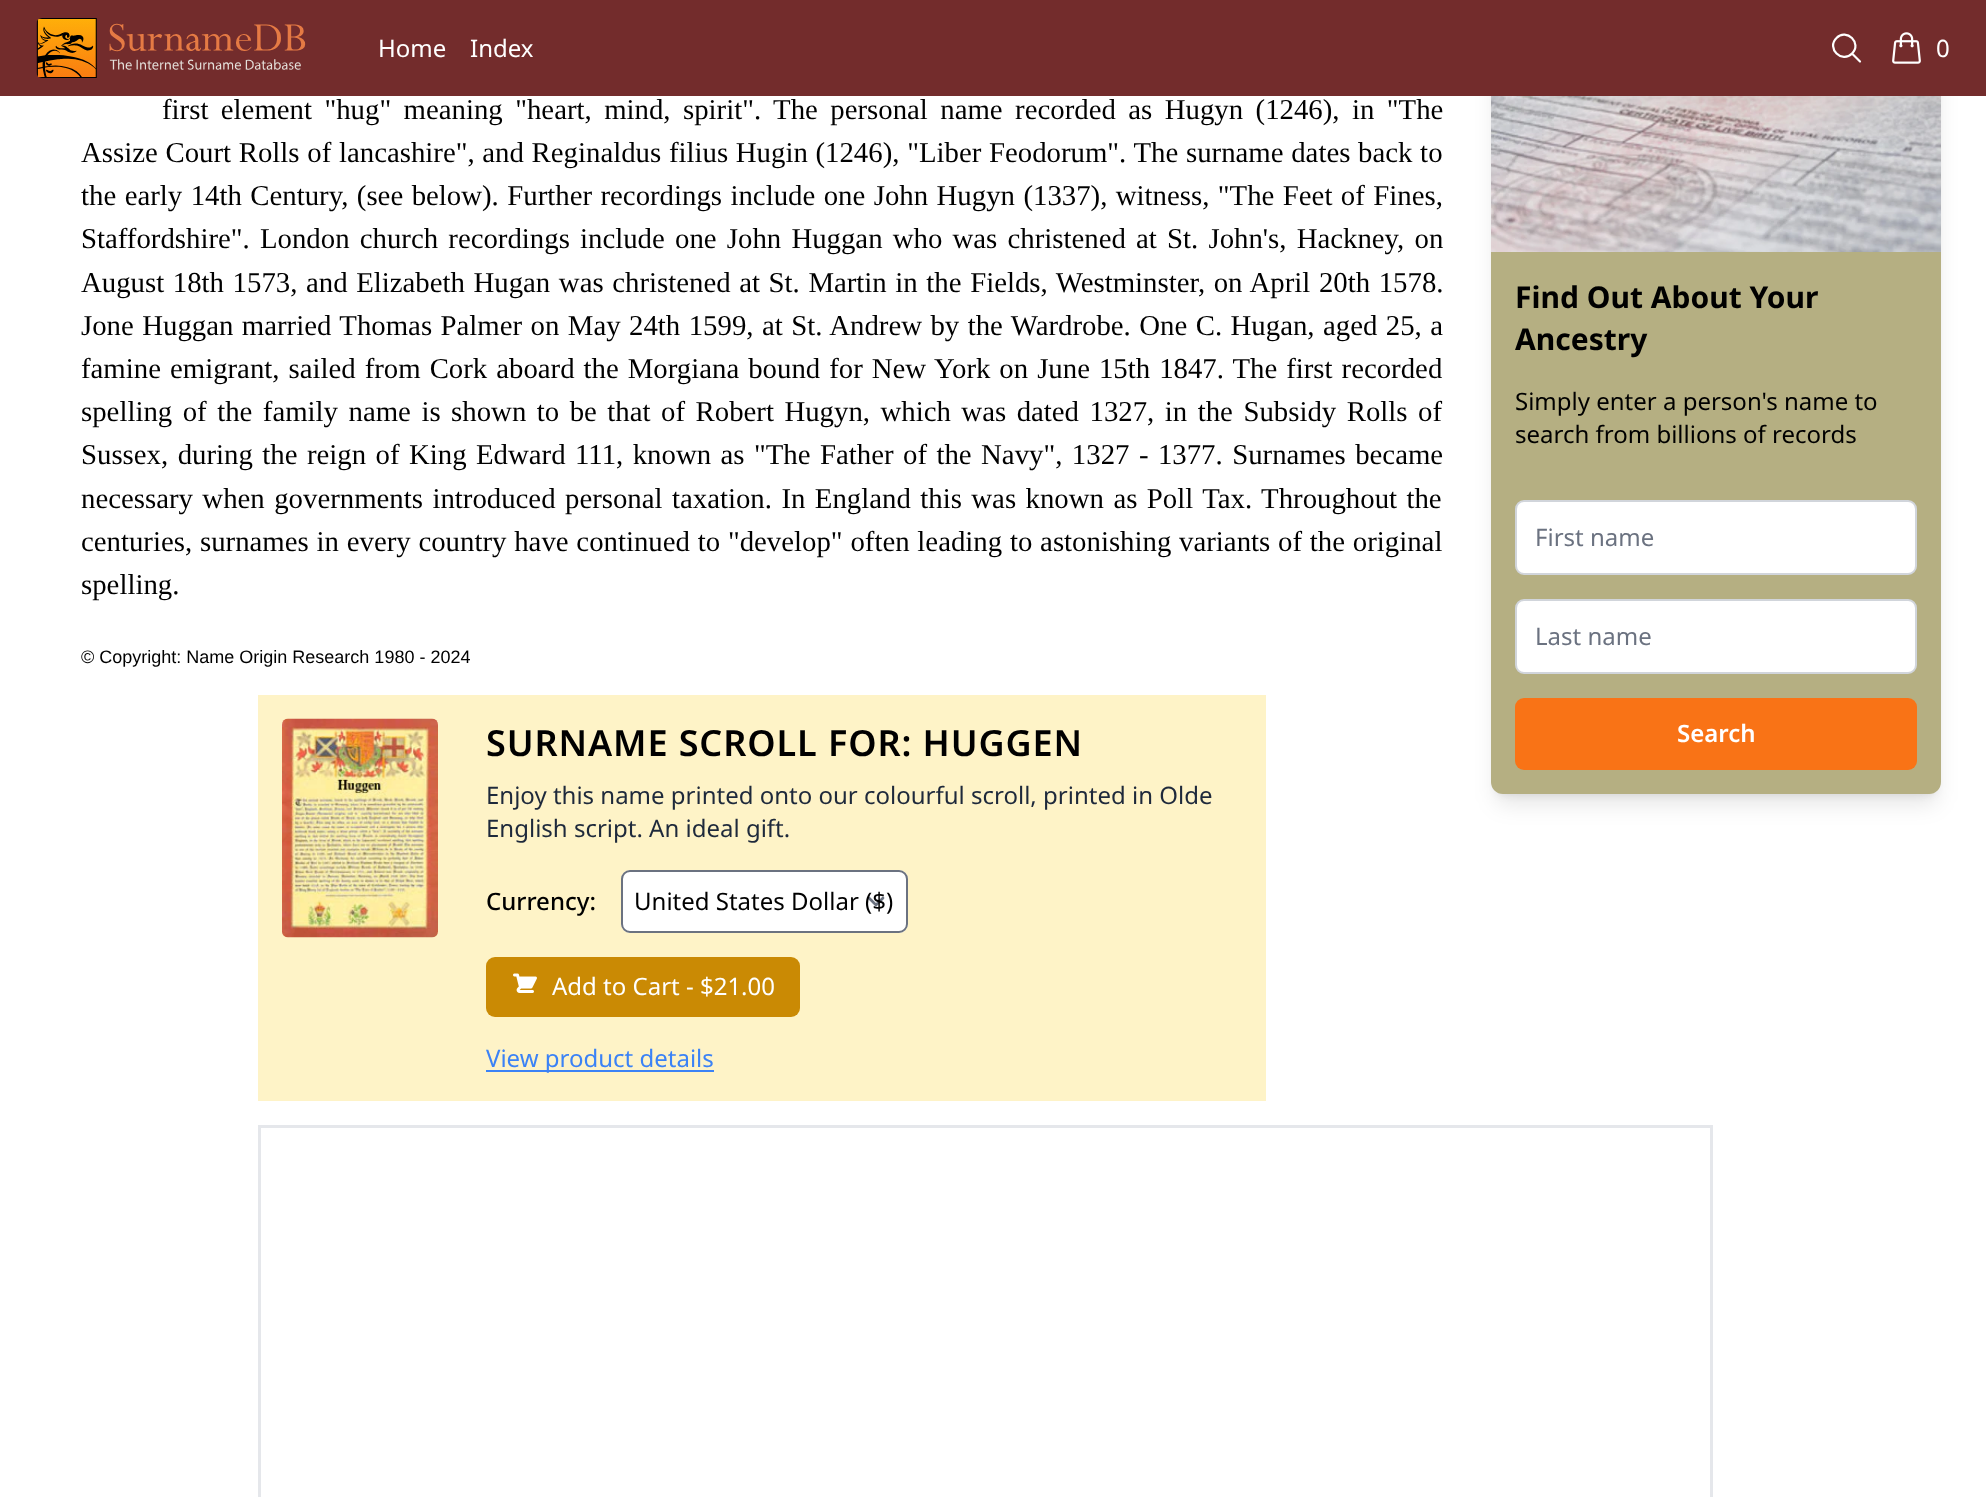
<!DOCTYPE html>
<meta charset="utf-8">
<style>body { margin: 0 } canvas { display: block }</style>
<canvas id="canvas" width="1986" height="1497"></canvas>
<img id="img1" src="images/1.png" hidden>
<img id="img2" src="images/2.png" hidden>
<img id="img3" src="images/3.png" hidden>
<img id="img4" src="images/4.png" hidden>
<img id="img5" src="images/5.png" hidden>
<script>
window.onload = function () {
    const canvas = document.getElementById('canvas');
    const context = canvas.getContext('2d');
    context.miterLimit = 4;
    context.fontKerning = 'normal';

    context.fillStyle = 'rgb(255, 255, 255)';
    context.fillRect(0, 0, 1986, 1497);
    context.fillStyle = 'rgba(0, 0, 0, 0.1)';
    context.filter = 'blur(4.5px)';
    context.beginPath();
    context.roundRect(1497, -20, 438, 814, 6);
    context.fill();
    context.filter = 'none';
    context.filter = 'blur(11px)';
    context.beginPath();
    context.roundRect(1496, -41, 441, 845, 8);
    context.fill();
    context.filter = 'none';
    context.fillStyle = 'rgb(181, 175, 130)';
    context.beginPath();
    context.roundRect(1491, -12, 450, 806, 12);
    context.fill();
    context.fillStyle = 'rgb(115, 44, 44)';
    context.fillRect(0, 0, 1986, 96);
    context.drawImage(document.getElementById('img1'), 36, 18, 270, 60);
    context.beginPath();
    context.moveTo(1860, 61.5);
    context.lineTo(1852, 53.5);
    context.moveTo(1852, 53.5);
    context.bezierCurveTo(1862.5, 43.5, 1846.5, 27.5, 1836.5, 38);
    context.bezierCurveTo(1826, 48, 1842, 64, 1852, 53.5);
    context.closePath();
    context.strokeStyle = 'rgb(255, 255, 255)';
    context.lineWidth = 2.2;
    context.lineCap = 'round';
    context.lineJoin = 'round';
    context.stroke();
    context.drawImage(document.getElementById('img2'), 1892, 32, 29, 32);
    context.fillStyle = 'rgb(254, 243, 199)';
    context.fillRect(258, 695, 1008, 406);
    context.drawImage(document.getElementById('img3'), 282, 718, 156, 220);
    context.fillStyle = 'rgb(255, 255, 255)';
    context.beginPath();
    context.roundRect(621, 870, 287, 63, 9);
    context.fill();
    context.beginPath();
    context.moveTo(869, 898);
    context.lineTo(876, 905);
    context.lineTo(883, 898);
    context.strokeStyle = 'rgb(107, 114, 128)';
    context.lineWidth = 2.7;
    context.stroke();
    context.beginPath();
    context.roundRect(622, 871, 285, 61, 8);
    context.lineWidth = 2;
    context.lineJoin = 'miter';
    context.stroke();
    context.fillStyle = 'rgb(202, 138, 4)';
    context.beginPath();
    context.roundRect(486, 957, 314, 60, 9);
    context.fill();
    context.drawImage(document.getElementById('img4'), 513, 973, 24, 20);
    context.fillStyle = 'rgb(59, 130, 246)';
    context.fillRect(486, 1070, 228, 2);
    context.strokeStyle = 'rgb(229, 231, 235)';
    context.lineWidth = 3;
    context.strokeRect(259.5, 1126.5, 1452, 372);
    context.drawImage(document.getElementById('img5'), 1491, 96, 450, 156);
    context.fillStyle = 'rgb(255, 255, 255)';
    context.beginPath();
    context.roundRect(1516, 501, 400, 73, 8);
    context.fill();
    context.strokeStyle = 'rgb(209, 213, 219)';
    context.lineWidth = 2;
    context.stroke();
    context.beginPath();
    context.roundRect(1516, 600, 400, 73, 8);
    context.fill();
    context.stroke();
    context.fillStyle = 'rgb(249, 115, 22)';
    context.beginPath();
    context.roundRect(1515, 698, 402, 72, 9);
    context.fill();
    context.font = '24px Noto Sans';
    context.fillStyle = 'rgb(255, 255, 255)';
    context.fillText('Home', 378, 57);
    context.fillText('Index', 470, 57);
    context.fillText('0', 1936, 57);
    context.wordSpacing = '5.25px';
    context.font = '28.8px Liberation Serif';
    context.fillStyle = 'rgb(0, 0, 0)';
    context.fillText('first element "hug" meaning "heart, mind, spirit". The personal name recorded as Hugyn (1246), in "The', 162, 119);
    context.wordSpacing = '0.5px';
    context.fillText('Assize Court Rolls of lancashire", and Reginaldus filius Hugin (1246), "Liber Feodorum". The surname dates back to', 81, 162);
    context.wordSpacing = '1.25px';
    context.fillText('the early 14th Century, (see below). Further recordings include one John Hugyn (1337), witness, "The Feet of Fines,', 81, 205);
    context.wordSpacing = '3px';
    context.fillText('Staffordshire". London church recordings include one John Huggan who was christened at St. John\'s, Hackney, on', 81, 248);
    context.wordSpacing = '1.4px';
    context.fillText('August 18th 1573, and Elizabeth Hugan was christened at St. Martin in the Fields, Westminster, on April 20th 1578.', 81, 292);
    context.wordSpacing = '1.25px';
    context.fillText('Jone Huggan married Thomas Palmer on May 24th 1599, at St. Andrew by the Wardrobe. One C. Hugan, aged 25, a', 81, 335);
    context.wordSpacing = '1.8px';
    context.fillText('famine emigrant, sailed from Cork aboard the Morgiana bound for New York on June 15th 1847. The first recorded', 81, 378);
    context.wordSpacing = '3.3px';
    context.fillText('spelling of the family name is shown to be that of Robert Hugyn, which was dated 1327, in the Subsidy Rolls of', 81, 421);
    context.wordSpacing = '2.25px';
    context.fillText('Sussex, during the reign of King Edward 111, known as "The Father of the Navy", 1327 - 1377. Surnames became', 81, 464);
    context.fillText('necessary when governments introduced personal taxation. In England this was known as Poll Tax. Throughout the', 81, 508);
    context.wordSpacing = '0.6px';
    context.fillText('centuries, surnames in every country have continued to "develop" often leading to astonishing variants of the original', 81, 551);
    context.wordSpacing = '0px';
    context.fillText('spelling.', 81, 594);
    context.font = '18px Liberation Sans';
    context.fillText('© Copyright: Name Origin Research 1980 - 2024', 81, 663);
    context.letterSpacing = '0.9px';
    context.font = '600 36px Noto Sans';
    context.fillText('SURNAME SCROLL FOR: HUGGEN', 486, 756);
    context.letterSpacing = '0px';
    context.font = '24px Noto Sans';
    context.fillStyle = 'rgb(30, 41, 59)';
    context.fillText('Enjoy this name printed onto our colourful scroll, printed in Olde', 486, 804);
    context.fillText('English script. An ideal gift.', 486, 837);
    context.font = '500 24px Noto Sans';
    context.fillStyle = 'rgb(0, 0, 0)';
    context.fillText('Currency:', 486, 910);
    context.font = '24px Noto Sans';
    context.fillText('United States Dollar ($)', 634, 910);
    context.fillStyle = 'rgb(255, 255, 255)';
    context.fillText('Add to Cart - $21.00', 552, 995);
    context.fillStyle = 'rgb(59, 130, 246)';
    context.fillText('View product details', 486, 1067);
    context.font = 'bold 30px Noto Sans';
    context.fillStyle = 'rgb(0, 0, 0)';
    context.fillText('Find Out About Your', 1515, 308);
    context.fillText('Ancestry', 1515, 350);
    context.font = '24px Noto Sans';
    context.fillText('Simply enter a person\'s name to', 1515, 410);
    context.fillText('search from billions of records', 1515, 443);
    context.fillStyle = 'rgb(107, 114, 128)';
    context.fillText('First name', 1535, 546);
    context.fillText('Last name', 1535, 645);
    context.font = '600 24px Noto Sans';
    context.fillStyle = 'rgb(255, 255, 255)';
    context.fillText('Search', 1677, 742);
};
</script>
